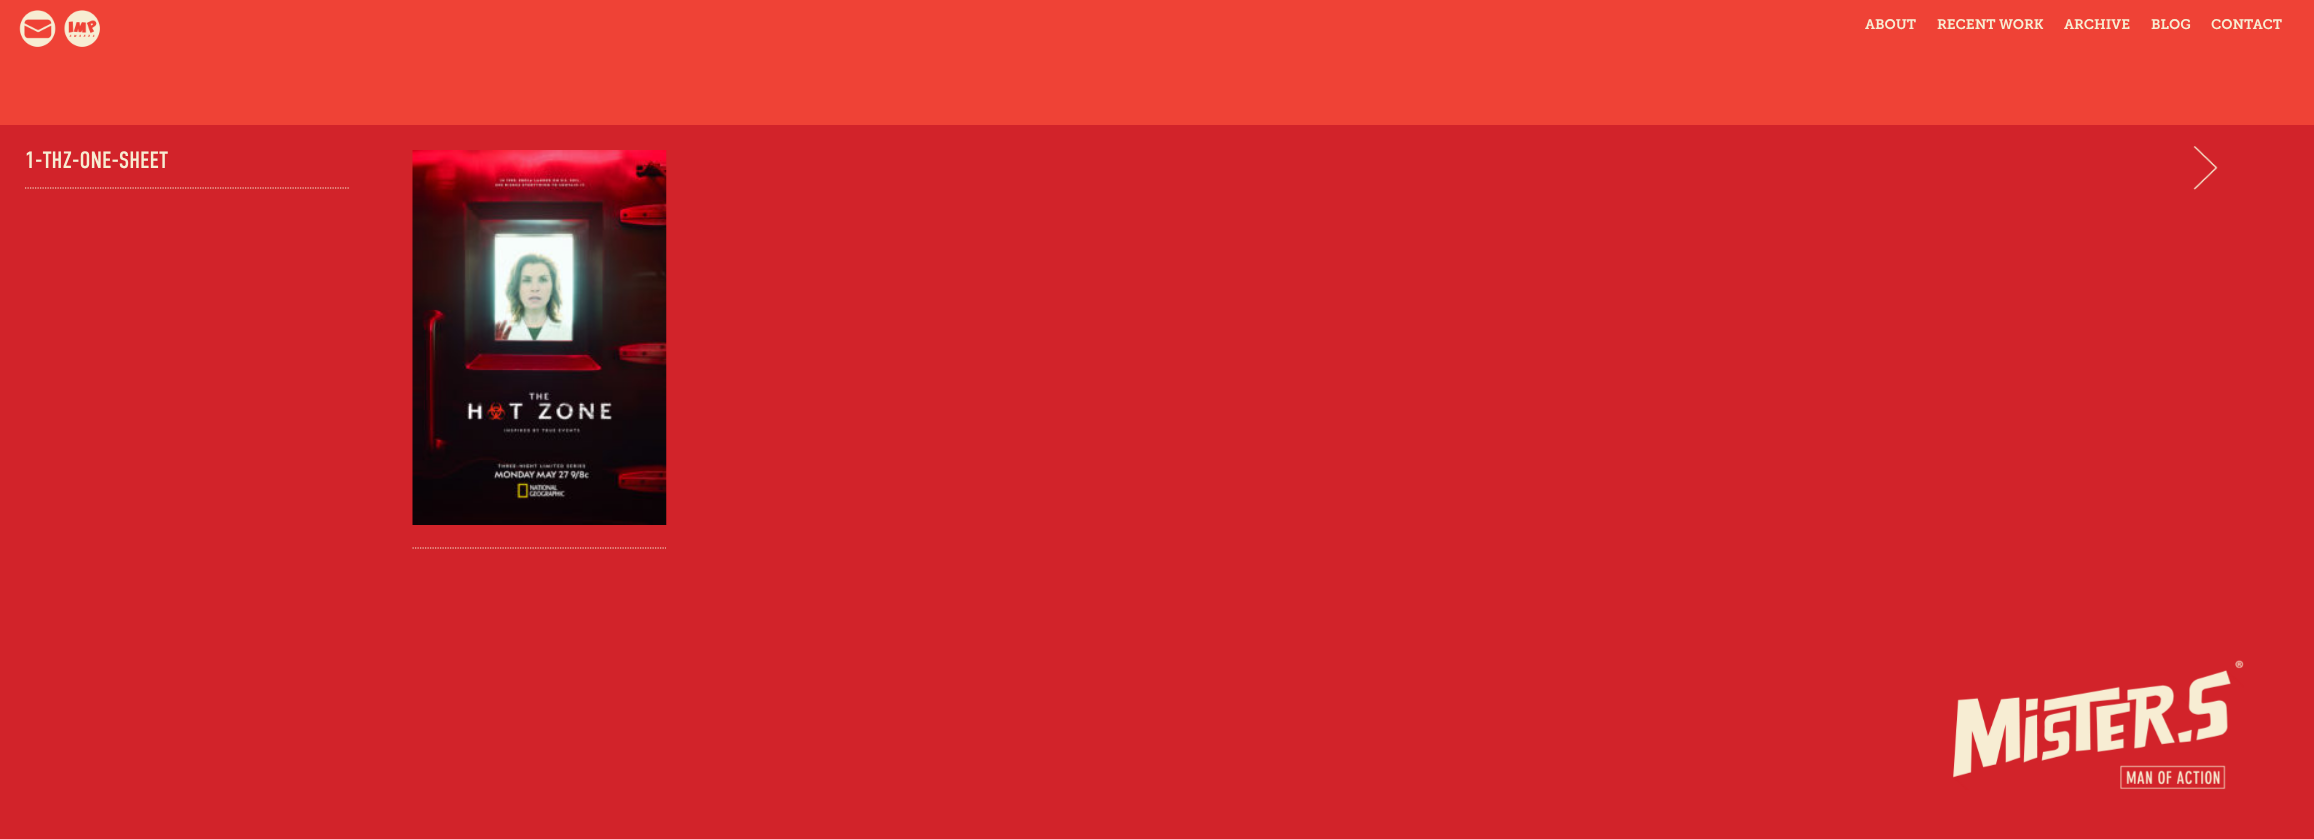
<!DOCTYPE html>
<meta charset="utf-8">
<style>body { margin: 0 } canvas { display: block }</style>
<canvas id="canvas" width="2314" height="839"></canvas>
<img id="img1" src="images/1.png" hidden>
<img id="img2" src="images/2.png" hidden>
<img id="img3" src="images/3.png" hidden>
<img id="img4" src="images/4.png" hidden>
<img id="img5" src="images/5.png" hidden>
<script>
window.onload = function () {
    const canvas = document.getElementById('canvas');
    const context = canvas.getContext('2d');
    context.miterLimit = 4;
    context.fontKerning = 'normal';

    context.fillStyle = 'rgb(210, 35, 42)';
    context.fillRect(0, 0, 2314, 839);
    context.fillStyle = 'rgb(239, 66, 54)';
    context.fillRect(0, 0, 2314, 125);
    context.drawImage(document.getElementById('img1'), 19, 10, 37, 37);
    context.drawImage(document.getElementById('img2'), 64, 10, 36, 37);
    context.beginPath();
    context.moveTo(25, 188);
    context.lineTo(350, 188);
    context.strokeStyle = 'rgb(247, 237, 211)';
    context.lineWidth = 1.2;
    context.setLineDash([1.25, 1.25]);
    context.stroke();
    context.drawImage(document.getElementById('img3'), 412, 150, 255, 375);
    context.beginPath();
    context.moveTo(412.5, 548);
    context.lineTo(666, 548);
    context.stroke();
    context.drawImage(document.getElementById('img4'), 2193, 146, 25, 44);
    context.drawImage(document.getElementById('img5'), 1953, 660, 291, 130);
    context.font = '600 13.75px "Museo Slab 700"';
    context.fillStyle = 'rgb(247, 237, 211)';
    context.fillText('ABOUT', 1865, 29);
    context.fillText('RECENT WORK', 1937, 29);
    context.fillText('ARCHIVE', 2064, 29);
    context.fillText('BLOG', 2151, 29);
    context.fillText('CONTACT', 2211, 29);
    context.font = '23.75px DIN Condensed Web';
    context.fillText('1-THZ-ONE-SHEET', 25, 168);
};
</script>
